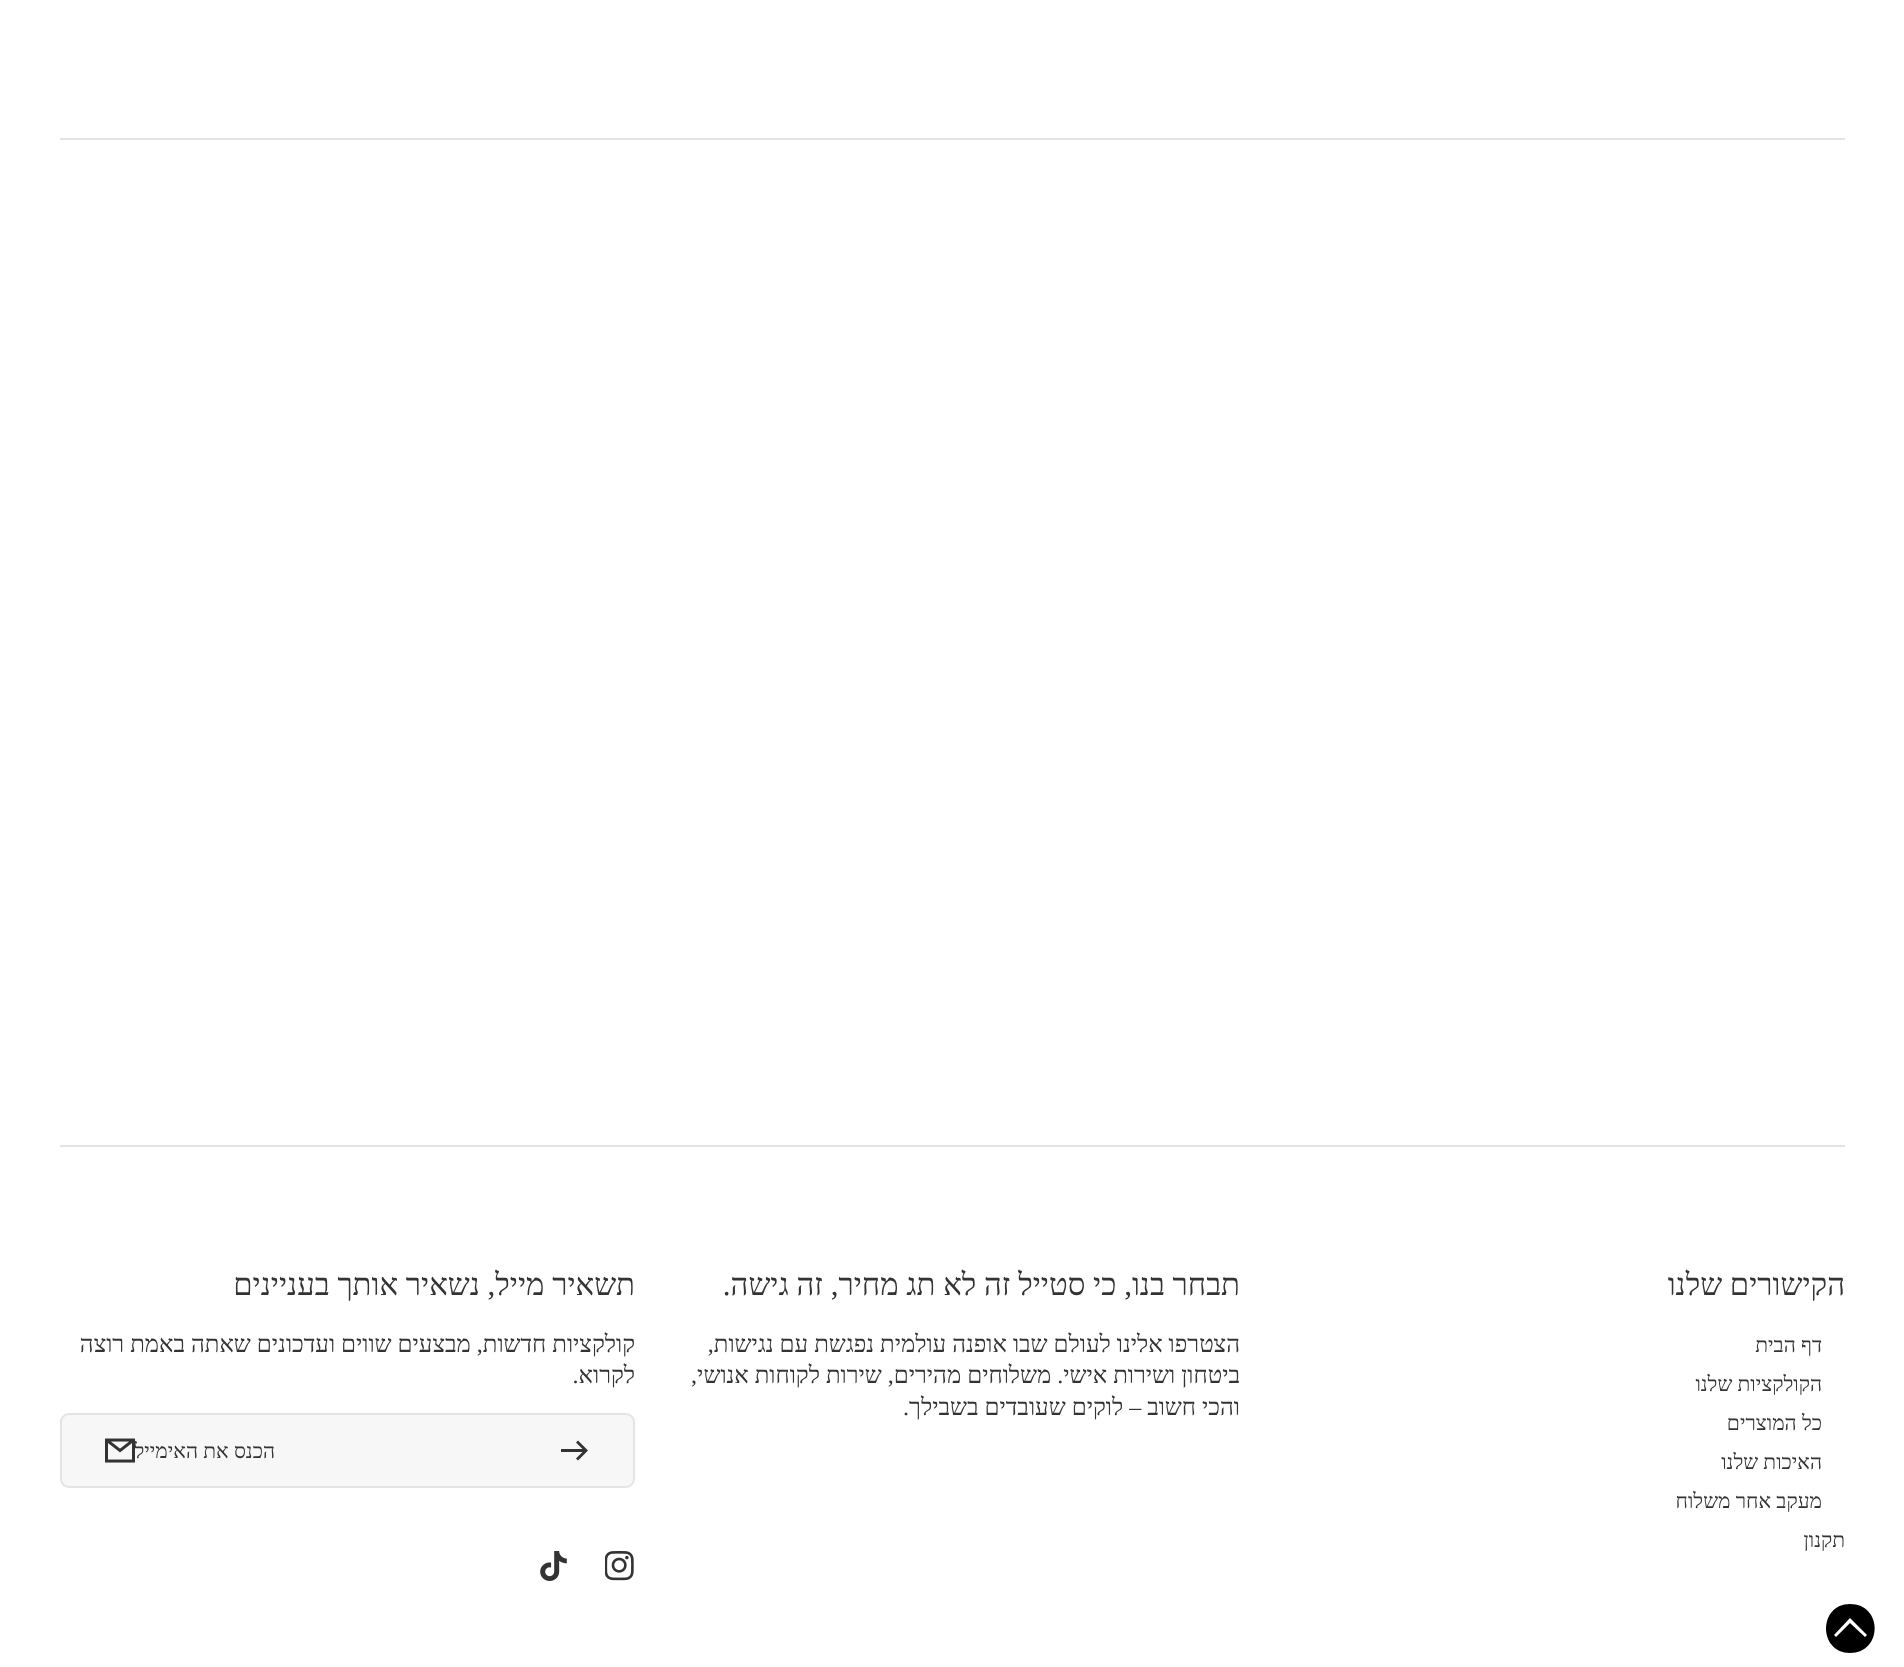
<!DOCTYPE html>
<meta charset="utf-8">
<style>body { margin: 0 } canvas { display: block }</style>
<canvas id="canvas" width="1904" height="1667"></canvas>
<img id="img1" src="images/1.png" hidden>
<img id="img2" src="images/2.png" hidden>
<img id="img3" src="images/3.png" hidden>
<script>
window.onload = function () {
    const canvas = document.getElementById('canvas');
    const context = canvas.getContext('2d');
    context.miterLimit = 4;
    context.fontKerning = 'normal';

    context.fillStyle = 'rgb(255, 255, 255)';
    context.fillRect(0, 0, 1904, 1667);
    context.fillStyle = 'rgb(228, 228, 228)';
    context.fillRect(60, 138, 1785, 2);
    context.fillRect(60, 1145, 1785, 2);
    context.fillStyle = 'rgb(247, 247, 247)';
    context.beginPath();
    context.roundRect(61, 1414, 573, 73, 8);
    context.fill();
    context.strokeStyle = 'rgb(228, 228, 228)';
    context.lineWidth = 2;
    context.stroke();
    context.fillStyle = 'rgb(51, 51, 51)';
    context.beginPath();
    context.moveTo(582.5, 1452);
    context.lineTo(561, 1452);
    context.lineTo(561, 1449);
    context.lineTo(582.5, 1449);
    context.lineTo(576, 1442.5);
    context.lineTo(578, 1440.5);
    context.lineTo(588, 1450.5);
    context.lineTo(578, 1460.5);
    context.lineTo(576, 1458.5);
    context.closePath();
    context.fill();
    context.drawImage(document.getElementById('img1'), 105, 1438, 30, 25);
    context.drawImage(document.getElementById('img2'), 605, 1551, 29, 30);
    context.drawImage(document.getElementById('img3'), 540, 1551, 27, 30);
    context.fillStyle = 'rgb(0, 0, 0)';
    context.beginPath();
    context.moveTo(1850, 1604);
    context.bezierCurveTo(1818, 1604, 1818, 1653, 1850, 1653);
    context.bezierCurveTo(1883, 1653, 1883, 1604, 1850, 1604);
    context.closePath();
    context.moveTo(1865, 1637);
    context.lineTo(1850, 1623);
    context.lineTo(1836, 1637);
    context.lineTo(1834, 1635);
    context.lineTo(1850, 1618);
    context.lineTo(1867, 1635);
    context.closePath();
    context.fill('evenodd');
    context.direction = 'rtl';
    context.font = '31px Liberation Serif';
    context.fillStyle = 'rgb(51, 51, 51)';
    context.fillText('הקישורים שלנו', 1845, 1295);
    context.font = '21px Liberation Serif';
    context.fillText('דף הבית', 1822, 1352);
    context.fillText('הקולקציות שלנו', 1822, 1391);
    context.fillText('כל המוצרים', 1822, 1430);
    context.fillText('האיכות שלנו', 1822, 1469);
    context.fillText('מעקב אחר משלוח', 1822, 1508);
    context.fillText('תקנון', 1845, 1547);
    context.font = '31px Liberation Serif';
    context.fillText('תבחר בנו, כי סטייל זה לא תג מחיר, זה גישה.', 1240, 1295);
    context.font = '24px Liberation Serif';
    context.fillText('הצטרפו אלינו לעולם שבו אופנה עולמית נפגשת עם נגישות,', 1240, 1352);
    context.fillText('ביטחון ושירות אישי. משלוחים מהירים, שירות לקוחות אנושי,', 1240, 1383);
    context.fillText('והכי חשוב – לוקים שעובדים בשבילך.', 1240, 1415);
    context.font = '31px Liberation Serif';
    context.fillText('תשאיר מייל, נשאיר אותך בעניינים', 635, 1295);
    context.font = '24px Liberation Serif';
    context.fillText('קולקציות חדשות, מבצעים שווים ועדכונים שאתה באמת רוצה', 635, 1352);
    context.fillText('לקרוא.', 635, 1383);
    context.font = '21px Liberation Serif';
    context.fillText('הכנס את האימייל', 275, 1458);
};
</script>
